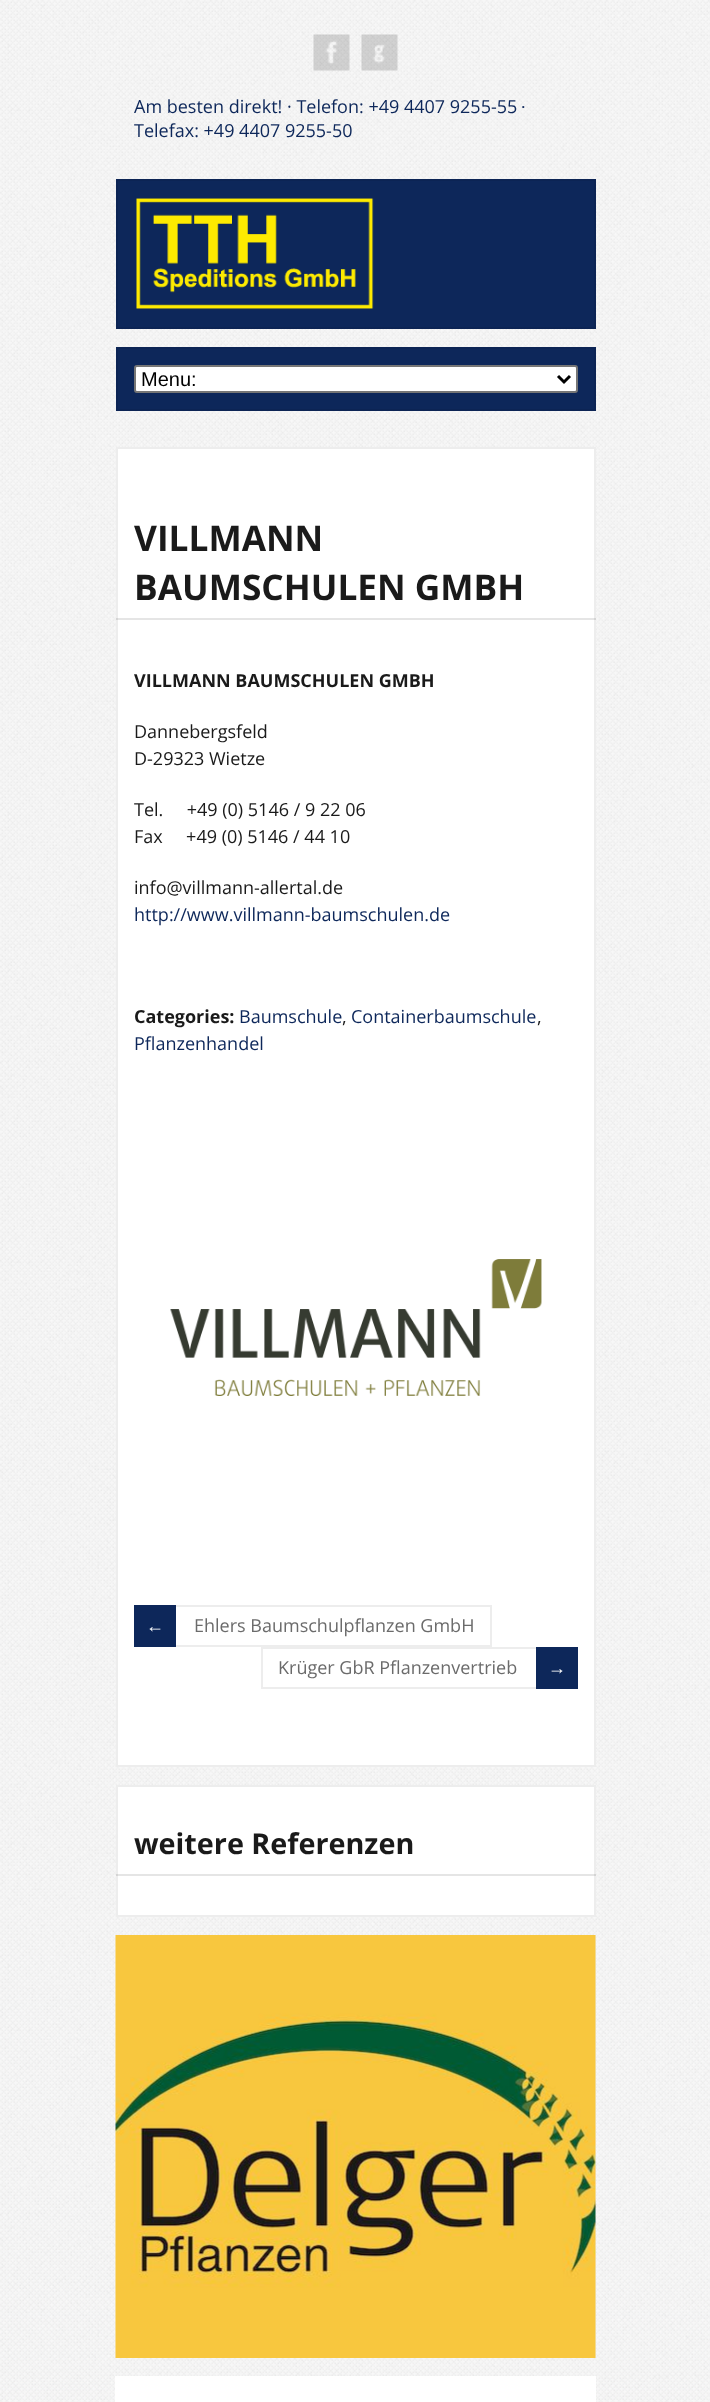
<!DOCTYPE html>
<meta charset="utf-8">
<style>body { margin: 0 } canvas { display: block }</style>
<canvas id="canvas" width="710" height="2402"></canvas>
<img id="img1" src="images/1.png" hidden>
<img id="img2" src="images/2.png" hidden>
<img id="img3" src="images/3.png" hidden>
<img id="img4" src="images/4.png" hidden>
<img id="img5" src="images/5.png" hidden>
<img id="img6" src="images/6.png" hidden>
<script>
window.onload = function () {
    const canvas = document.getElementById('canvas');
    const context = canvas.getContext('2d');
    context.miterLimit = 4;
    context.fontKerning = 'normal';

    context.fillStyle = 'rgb(255, 255, 255)';
    context.fillRect(0, 0, 710, 2402);
    context.drawImage(document.getElementById('img1'), 0, 0, 710, 2402);
    context.drawImage(document.getElementById('img2'), 313, 34, 37, 37);
    context.drawImage(document.getElementById('img3'), 361, 34, 37, 37);
    context.fillStyle = 'rgb(13, 39, 90)';
    context.beginPath();
    context.rect(117, 180, 478, 148);
    context.fill();
    context.strokeStyle = 'rgb(12, 36, 84)';
    context.lineWidth = 2;
    context.stroke();
    context.drawImage(document.getElementById('img4'), 136, 198, 238, 111);
    context.beginPath();
    context.rect(117, 348, 478, 62);
    context.fill();
    context.stroke();
    context.fillStyle = 'rgb(255, 255, 255)';
    context.beginPath();
    context.roundRect(135, 366, 442, 26, 2);
    context.fill();
    context.strokeStyle = 'rgb(118, 118, 118)';
    context.stroke();
    context.beginPath();
    context.moveTo(558, 376);
    context.lineTo(564, 382);
    context.lineTo(570, 376);
    context.strokeStyle = 'rgb(0, 0, 0)';
    context.lineWidth = 3;
    context.stroke();
    context.beginPath();
    context.rect(117, 448, 478, 1318);
    context.fill();
    context.strokeStyle = 'rgb(237, 237, 237)';
    context.lineWidth = 2;
    context.stroke();
    context.fillStyle = 'rgba(0, 0, 0, 0.1)';
    context.fillRect(116, 618, 480, 2);
    context.drawImage(document.getElementById('img5'), 170, 1259, 372, 137);
    context.strokeRect(135, 1606, 356, 40);
    context.fillStyle = 'rgb(13, 39, 90)';
    context.fillRect(134, 1605, 42, 42);
    context.strokeRect(262, 1648, 315, 40);
    context.fillRect(536, 1647, 42, 42);
    context.fillStyle = 'rgb(255, 255, 255)';
    context.beginPath();
    context.rect(117, 1786, 478, 130);
    context.fill();
    context.stroke();
    context.fillStyle = 'rgba(0, 0, 0, 0.1)';
    context.fillRect(116, 1874, 480, 2);
    context.strokeRect(117, 1936, 478, 421);
    context.drawImage(document.getElementById('img6'), 115, 1935, 481, 423);
    context.fillStyle = 'rgb(255, 255, 255)';
    context.fillRect(115, 2376, 481, 26);
    context.font = '18px Open Sans';
    context.fillStyle = 'rgb(13, 39, 90)';
    context.fillText('Am besten direkt! · Telefon: +49 4407 9255-55', 134, 113);
    context.font = '18px Liberation Serif';
    context.fillText('∙', 521, 113);
    context.font = '18px Open Sans';
    context.fillText('Telefax: +49 4407 9255-50', 134, 137);
    context.font = '20px Liberation Sans';
    context.fillStyle = 'rgb(0, 0, 0)';
    context.fillText('Menu:', 141, 386);
    context.font = 'bold 35.25px Open Sans';
    context.fillStyle = 'rgb(26, 26, 26)';
    context.fillText('VILLMANN', 134, 551);
    context.fillText('BAUMSCHULEN GMBH', 134, 600);
    context.font = 'bold 18px Open Sans';
    context.fillText('VILLMANN BAUMSCHULEN GMBH', 134, 687);
    context.font = '18px Open Sans';
    context.fillText('Dannebergsfeld', 134, 738);
    context.fillText('D-29323 Wietze', 134, 765);
    context.fillText('Tel.     +49 (0) 5146 / 9 22 06', 134, 816);
    context.fillText('Fax     +49 (0) 5146 / 44 10', 134, 843);
    context.fillText('info@villmann-allertal.de', 134, 894);
    context.fillStyle = 'rgb(13, 39, 90)';
    context.fillText('http://www.villmann-baumschulen.de', 134, 921);
    context.font = 'bold 18px Open Sans';
    context.fillStyle = 'rgb(26, 26, 26)';
    context.fillText('Categories:', 134, 1023);
    context.font = '18px Open Sans';
    context.fillStyle = 'rgb(13, 39, 90)';
    context.fillText('Baumschule', 239, 1023);
    context.fillStyle = 'rgb(26, 26, 26)';
    context.fillText(',', 342, 1023);
    context.fillStyle = 'rgb(13, 39, 90)';
    context.fillText('Containerbaumschule', 351, 1023);
    context.fillStyle = 'rgb(26, 26, 26)';
    context.fillText(',', 537, 1023);
    context.fillStyle = 'rgb(13, 39, 90)';
    context.fillText('Pflanzenhandel', 134, 1050);
    context.font = '18px Liberation Serif';
    context.fillStyle = 'rgb(255, 255, 255)';
    context.fillText('←', 146, 1632);
    context.font = '18px Open Sans';
    context.fillStyle = 'rgb(107, 107, 107)';
    context.fillText('Ehlers Baumschulpflanzen GmbH', 194, 1632);
    context.fillText('Krüger GbR Pflanzenvertrieb', 278, 1674);
    context.font = '18px Liberation Serif';
    context.fillStyle = 'rgb(255, 255, 255)';
    context.fillText('→', 548, 1674);
    context.font = 'bold 28.75px Open Sans';
    context.fillStyle = 'rgb(26, 26, 26)';
    context.fillText('weitere Referenzen', 134, 1854);
};
</script>
